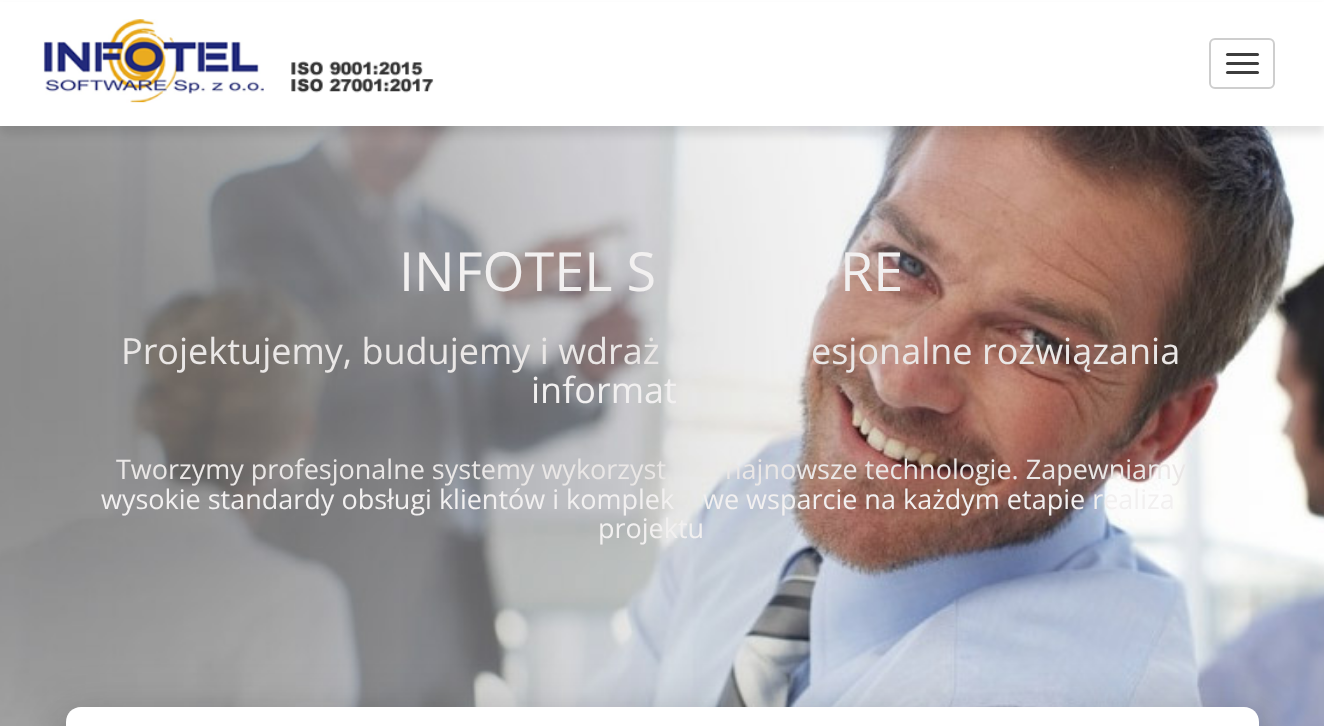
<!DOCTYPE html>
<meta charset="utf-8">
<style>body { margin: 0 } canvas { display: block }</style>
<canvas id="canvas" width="1324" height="726"></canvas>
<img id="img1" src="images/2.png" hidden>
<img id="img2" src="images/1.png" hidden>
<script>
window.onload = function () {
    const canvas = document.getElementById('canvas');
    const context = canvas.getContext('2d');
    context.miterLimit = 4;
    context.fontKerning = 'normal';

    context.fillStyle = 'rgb(255, 255, 255)';
    context.fillRect(0, 0, 1324, 726);
    context.drawImage(document.getElementById('img1'), 0, 126, 1324, 600);
    context.fillStyle = 'rgba(0, 0, 0, 0.1)';
    context.filter = 'blur(5px)';
    context.beginPath();
    context.rect(0, 8, 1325, 126);
    context.fill();
    context.filter = 'none';
    context.fillStyle = 'rgb(255, 255, 255)';
    context.fillRect(0, 2, 1324, 124);
    context.drawImage(document.getElementById('img2'), 43, 19, 391, 84);
    context.beginPath();
    context.roundRect(1210, 39, 64, 49, 5);
    context.strokeStyle = 'rgb(206, 206, 206)';
    context.lineWidth = 2;
    context.stroke();
    context.fillStyle = 'rgb(61, 61, 61)';
    context.beginPath();
    context.roundRect(1226, 53, 33, 3, 1.5);
    context.fill();
    context.beginPath();
    context.roundRect(1226, 62, 33, 3, 1.5);
    context.fill();
    context.beginPath();
    context.roundRect(1226, 71, 33, 3, 1.5);
    context.fill();
    context.fillStyle = 'rgba(0, 0, 0, 0.12)';
    context.filter = 'blur(22.5px)';
    context.beginPath();
    context.roundRect(59, 708, 1207, 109, 23);
    context.fill();
    context.filter = 'none';
    context.fillStyle = 'rgba(0, 0, 0, 0.14)';
    context.filter = 'blur(18px)';
    context.beginPath();
    context.roundRect(63, 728, 1199, 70, 18);
    context.fill();
    context.filter = 'none';
    context.fillStyle = 'rgb(255, 255, 255)';
    context.beginPath();
    context.moveTo(81, 707);
    context.lineTo(1244, 707);
    context.bezierCurveTo(1252.5, 707, 1259, 713.5, 1259, 722);
    context.lineTo(1259, 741);
    context.lineTo(66, 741);
    context.lineTo(66, 722);
    context.bezierCurveTo(66, 713.5, 72.5, 707, 81, 707);
    context.closePath();
    context.fill();
    context.font = '54px Open Sans';
    context.fillStyle = 'rgb(242, 240, 240)';
    context.fillText('INFOTEL S', 399, 291);
    context.fillText('RE', 840, 291);
    context.font = '36px Open Sans';
    context.fillStyle = 'rgb(234, 231, 230)';
    context.fillText('Projektujemy, budujemy i wdraż', 121, 364);
    context.fillText('esjonalne rozwiązania', 811, 364);
    context.fillStyle = 'rgb(242, 240, 240)';
    context.fillText('informat', 531, 403);
    context.font = '27px Open Sans';
    context.fillStyle = 'rgb(234, 231, 230)';
    context.fillText('Tworzymy profesjonalne systemy wykorzyst', 116, 479);
    context.fillText('najnowsze technologie. Zapewniamy', 725, 479);
    context.fillStyle = 'rgb(242, 240, 240)';
    context.fillText('wysokie standardy obsługi klientów i komplek', 101, 509);
    context.fillText('we wsparcie na każdym etapie realiza', 703, 509);
    context.fillText('projektu', 598, 538);
};
</script>
